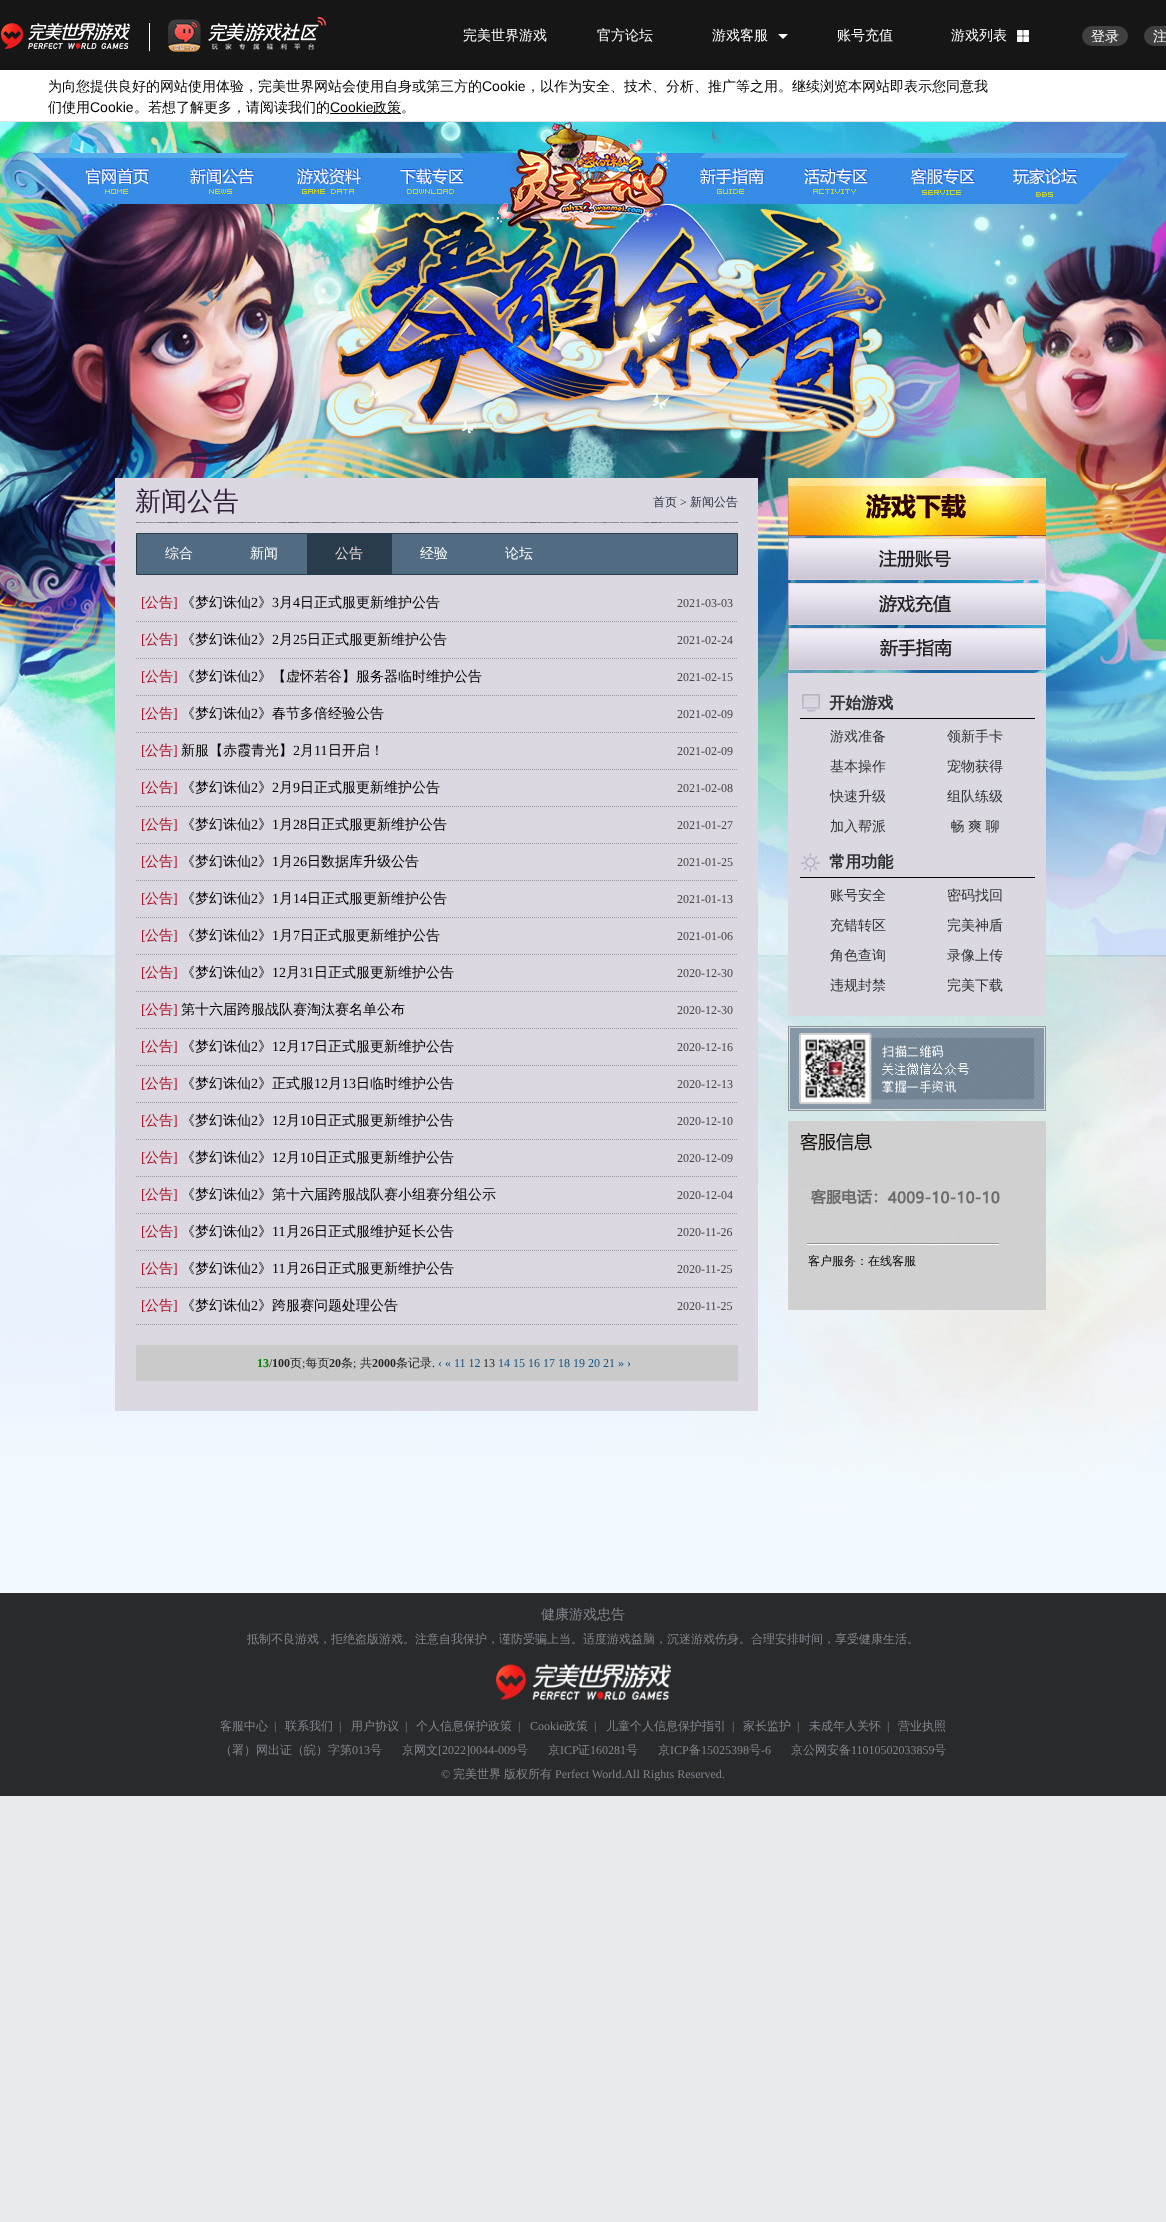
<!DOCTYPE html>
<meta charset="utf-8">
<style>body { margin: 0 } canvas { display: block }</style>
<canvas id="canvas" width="1166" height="2222"></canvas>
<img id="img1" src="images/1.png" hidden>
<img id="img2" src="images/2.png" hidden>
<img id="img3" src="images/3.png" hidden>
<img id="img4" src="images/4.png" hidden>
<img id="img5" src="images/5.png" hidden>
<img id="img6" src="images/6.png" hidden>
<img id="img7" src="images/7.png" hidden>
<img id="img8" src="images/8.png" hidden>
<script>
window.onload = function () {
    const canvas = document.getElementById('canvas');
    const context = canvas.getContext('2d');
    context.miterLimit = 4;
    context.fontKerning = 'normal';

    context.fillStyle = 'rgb(232, 235, 238)';
    context.fillRect(0, 0, 1166, 2222);
    context.fillStyle = 'rgb(22, 22, 22)';
    context.fillRect(0, 0, 1166, 70);
    context.drawImage(document.getElementById('img1'), 1, 17, 325, 35);
    context.drawImage(document.getElementById('img2'), 778, 34, 10, 5);
    context.drawImage(document.getElementById('img3'), 1017, 30, 12, 12);
    context.fillStyle = 'rgb(65, 64, 64)';
    context.beginPath();
    context.roundRect(1082, 26, 46, 20, 10);
    context.fill();
    context.beginPath();
    context.roundRect(1144, 26, 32, 20, 10);
    context.fill();
    context.fillStyle = 'rgb(255, 255, 255)';
    context.fillRect(0, 70, 1166, 51);
    context.fillStyle = 'rgb(226, 226, 226)';
    context.fillRect(0, 121, 1166, 1);
    context.fillStyle = 'rgb(0, 0, 0)';
    context.fillRect(330, 113, 71, 1);
    context.drawImage(document.getElementById('img4'), 0, 122, 1166, 1471);
    context.drawImage(document.getElementById('img5'), 491, 122, 179, 109);
    context.fillStyle = 'rgb(220, 216, 225)';
    context.fillRect(115, 478, 643, 933);
    context.drawImage(document.getElementById('img6'), 136, 522, 602, 1);
    context.fillStyle = 'rgb(80, 107, 130)';
    context.beginPath();
    context.rect(136.5, 533.5, 601, 41);
    context.fill();
    context.strokeStyle = 'rgb(41, 60, 75)';
    context.stroke();
    context.fillStyle = 'rgb(41, 60, 75)';
    context.fillRect(307, 534, 85, 40);
    context.beginPath();
    context.moveTo(136, 621.5);
    context.lineTo(738, 621.5);
    context.strokeStyle = 'rgb(154, 154, 156)';
    context.setLineDash([1, 1]);
    context.stroke();
    context.beginPath();
    context.moveTo(136, 658.5);
    context.lineTo(738, 658.5);
    context.stroke();
    context.beginPath();
    context.moveTo(136, 695.5);
    context.lineTo(738, 695.5);
    context.stroke();
    context.beginPath();
    context.moveTo(136, 732.5);
    context.lineTo(738, 732.5);
    context.stroke();
    context.beginPath();
    context.moveTo(136, 769.5);
    context.lineTo(738, 769.5);
    context.stroke();
    context.beginPath();
    context.moveTo(136, 806.5);
    context.lineTo(738, 806.5);
    context.stroke();
    context.beginPath();
    context.moveTo(136, 843.5);
    context.lineTo(738, 843.5);
    context.stroke();
    context.beginPath();
    context.moveTo(136, 880.5);
    context.lineTo(738, 880.5);
    context.stroke();
    context.beginPath();
    context.moveTo(136, 917.5);
    context.lineTo(738, 917.5);
    context.stroke();
    context.beginPath();
    context.moveTo(136, 954.5);
    context.lineTo(738, 954.5);
    context.stroke();
    context.beginPath();
    context.moveTo(136, 991.5);
    context.lineTo(738, 991.5);
    context.stroke();
    context.beginPath();
    context.moveTo(136, 1028.5);
    context.lineTo(738, 1028.5);
    context.stroke();
    context.beginPath();
    context.moveTo(136, 1065.5);
    context.lineTo(738, 1065.5);
    context.stroke();
    context.beginPath();
    context.moveTo(136, 1102.5);
    context.lineTo(738, 1102.5);
    context.stroke();
    context.beginPath();
    context.moveTo(136, 1139.5);
    context.lineTo(738, 1139.5);
    context.stroke();
    context.beginPath();
    context.moveTo(136, 1176.5);
    context.lineTo(738, 1176.5);
    context.stroke();
    context.beginPath();
    context.moveTo(136, 1213.5);
    context.lineTo(738, 1213.5);
    context.stroke();
    context.beginPath();
    context.moveTo(136, 1250.5);
    context.lineTo(738, 1250.5);
    context.stroke();
    context.beginPath();
    context.moveTo(136, 1287.5);
    context.lineTo(738, 1287.5);
    context.stroke();
    context.beginPath();
    context.moveTo(136, 1324.5);
    context.lineTo(738, 1324.5);
    context.stroke();
    context.fillStyle = 'rgb(202, 202, 203)';
    context.fillRect(136, 1345, 602, 36);
    context.drawImage(document.getElementById('img7'), 788, 478, 258, 832);
    context.fillStyle = 'rgb(40, 42, 44)';
    context.fillRect(0, 1593, 1166, 203);
    context.drawImage(document.getElementById('img8'), 496, 1664, 175, 36);
    context.font = '500 14px WenQuanYi Zen Hei';
    context.fillStyle = 'rgb(255, 255, 255)';
    context.fillText('完美世界游戏', 463, 40);
    context.fillText('官方论坛', 597, 40);
    context.fillText('游戏客服', 712, 40);
    context.fillText('账号充值', 837, 40);
    context.fillText('游戏列表', 951, 40);
    context.fillText('登录', 1091, 41);
    context.fillText('注', 1153, 41);
    context.fillStyle = 'rgb(0, 0, 0)';
    context.fillText('为向您提供良好的网站使用体验，完美世界网站会使用自身或第三方的', 48, 91);
    context.font = '14px Liberation Sans';
    context.fillText('Cookie', 482, 91);
    context.font = '500 14px WenQuanYi Zen Hei';
    context.fillText('，以作为安全、技术、分析、推广等之用。继续浏览本网站即表示您同意我', 526, 91);
    context.fillText('们使用', 48, 112);
    context.font = '14px Liberation Sans';
    context.fillText('Cookie', 90, 112);
    context.font = '500 14px WenQuanYi Zen Hei';
    context.fillText('。若想了解更多，请阅读我们的', 134, 112);
    context.font = '14px Liberation Sans';
    context.fillText('Cookie', 330, 112);
    context.font = '500 14px WenQuanYi Zen Hei';
    context.fillText('政策。', 373, 112);
    context.font = '500 26px WenQuanYi Zen Hei';
    context.fillStyle = 'rgb(47, 31, 56)';
    context.fillText('新闻公告', 135, 510);
    context.font = '500 12px WenQuanYi Zen Hei';
    context.fillStyle = 'rgb(31, 45, 59)';
    context.fillText('首页', 653, 506);
    context.font = '12px Liberation Serif';
    context.fillText('>', 680, 506);
    context.font = '500 12px WenQuanYi Zen Hei';
    context.fillText('新闻公告', 690, 506);
    context.font = '500 14px WenQuanYi Zen Hei';
    context.fillStyle = 'rgb(255, 255, 255)';
    context.fillText('综合', 165, 558);
    context.fillText('新闻', 250, 558);
    context.fillStyle = 'rgb(232, 214, 213)';
    context.fillText('公告', 335, 558);
    context.fillStyle = 'rgb(255, 255, 255)';
    context.fillText('经验', 420, 558);
    context.fillText('论坛', 505, 558);
    context.font = '14px Liberation Serif';
    context.fillStyle = 'rgb(175, 13, 34)';
    context.fillText('[', 141, 607);
    context.font = '500 14px WenQuanYi Zen Hei';
    context.fillText('公告', 145, 607);
    context.font = '14px Liberation Serif';
    context.fillText(']', 173, 607);
    context.font = '500 14px WenQuanYi Zen Hei';
    context.fillStyle = 'rgb(0, 0, 0)';
    context.fillText('《梦幻诛仙', 181, 607);
    context.font = '14px Liberation Serif';
    context.fillText('2', 251, 607);
    context.font = '500 14px WenQuanYi Zen Hei';
    context.fillText('》', 258, 607);
    context.font = '14px Liberation Serif';
    context.fillText('3', 272, 607);
    context.font = '500 14px WenQuanYi Zen Hei';
    context.fillText('月', 279, 607);
    context.font = '14px Liberation Serif';
    context.fillText('4', 293, 607);
    context.font = '500 14px WenQuanYi Zen Hei';
    context.fillText('日正式服更新维护公告', 300, 607);
    context.font = '12px Liberation Serif';
    context.fillStyle = 'rgb(69, 69, 69)';
    context.fillText('2021-03-03', 677, 607);
    context.font = '14px Liberation Serif';
    context.fillStyle = 'rgb(175, 13, 34)';
    context.fillText('[', 141, 644);
    context.font = '500 14px WenQuanYi Zen Hei';
    context.fillText('公告', 145, 644);
    context.font = '14px Liberation Serif';
    context.fillText(']', 173, 644);
    context.font = '500 14px WenQuanYi Zen Hei';
    context.fillStyle = 'rgb(0, 0, 0)';
    context.fillText('《梦幻诛仙', 181, 644);
    context.font = '14px Liberation Serif';
    context.fillText('2', 251, 644);
    context.font = '500 14px WenQuanYi Zen Hei';
    context.fillText('》', 258, 644);
    context.font = '14px Liberation Serif';
    context.fillText('2', 272, 644);
    context.font = '500 14px WenQuanYi Zen Hei';
    context.fillText('月', 279, 644);
    context.font = '14px Liberation Serif';
    context.fillText('25', 293, 644);
    context.font = '500 14px WenQuanYi Zen Hei';
    context.fillText('日正式服更新维护公告', 307, 644);
    context.font = '12px Liberation Serif';
    context.fillStyle = 'rgb(69, 69, 69)';
    context.fillText('2021-02-24', 677, 644);
    context.font = '14px Liberation Serif';
    context.fillStyle = 'rgb(175, 13, 34)';
    context.fillText('[', 141, 681);
    context.font = '500 14px WenQuanYi Zen Hei';
    context.fillText('公告', 145, 681);
    context.font = '14px Liberation Serif';
    context.fillText(']', 173, 681);
    context.font = '500 14px WenQuanYi Zen Hei';
    context.fillStyle = 'rgb(0, 0, 0)';
    context.fillText('《梦幻诛仙', 181, 681);
    context.font = '14px Liberation Serif';
    context.fillText('2', 251, 681);
    context.font = '500 14px WenQuanYi Zen Hei';
    context.fillText('》【虚怀若谷】服务器临时维护公告', 258, 681);
    context.font = '12px Liberation Serif';
    context.fillStyle = 'rgb(69, 69, 69)';
    context.fillText('2021-02-15', 677, 681);
    context.font = '14px Liberation Serif';
    context.fillStyle = 'rgb(175, 13, 34)';
    context.fillText('[', 141, 718);
    context.font = '500 14px WenQuanYi Zen Hei';
    context.fillText('公告', 145, 718);
    context.font = '14px Liberation Serif';
    context.fillText(']', 173, 718);
    context.font = '500 14px WenQuanYi Zen Hei';
    context.fillStyle = 'rgb(0, 0, 0)';
    context.fillText('《梦幻诛仙', 181, 718);
    context.font = '14px Liberation Serif';
    context.fillText('2', 251, 718);
    context.font = '500 14px WenQuanYi Zen Hei';
    context.fillText('》春节多倍经验公告', 258, 718);
    context.font = '12px Liberation Serif';
    context.fillStyle = 'rgb(69, 69, 69)';
    context.fillText('2021-02-09', 677, 718);
    context.font = '14px Liberation Serif';
    context.fillStyle = 'rgb(175, 13, 34)';
    context.fillText('[', 141, 755);
    context.font = '500 14px WenQuanYi Zen Hei';
    context.fillText('公告', 145, 755);
    context.font = '14px Liberation Serif';
    context.fillText(']', 173, 755);
    context.font = '500 14px WenQuanYi Zen Hei';
    context.fillStyle = 'rgb(0, 0, 0)';
    context.fillText('新服【赤霞青光】', 181, 755);
    context.font = '14px Liberation Serif';
    context.fillText('2', 293, 755);
    context.font = '500 14px WenQuanYi Zen Hei';
    context.fillText('月', 300, 755);
    context.font = '14px Liberation Serif';
    context.fillText('11', 314, 755);
    context.font = '500 14px WenQuanYi Zen Hei';
    context.fillText('日开启！', 328, 755);
    context.font = '12px Liberation Serif';
    context.fillStyle = 'rgb(69, 69, 69)';
    context.fillText('2021-02-09', 677, 755);
    context.font = '14px Liberation Serif';
    context.fillStyle = 'rgb(175, 13, 34)';
    context.fillText('[', 141, 792);
    context.font = '500 14px WenQuanYi Zen Hei';
    context.fillText('公告', 145, 792);
    context.font = '14px Liberation Serif';
    context.fillText(']', 173, 792);
    context.font = '500 14px WenQuanYi Zen Hei';
    context.fillStyle = 'rgb(0, 0, 0)';
    context.fillText('《梦幻诛仙', 181, 792);
    context.font = '14px Liberation Serif';
    context.fillText('2', 251, 792);
    context.font = '500 14px WenQuanYi Zen Hei';
    context.fillText('》', 258, 792);
    context.font = '14px Liberation Serif';
    context.fillText('2', 272, 792);
    context.font = '500 14px WenQuanYi Zen Hei';
    context.fillText('月', 279, 792);
    context.font = '14px Liberation Serif';
    context.fillText('9', 293, 792);
    context.font = '500 14px WenQuanYi Zen Hei';
    context.fillText('日正式服更新维护公告', 300, 792);
    context.font = '12px Liberation Serif';
    context.fillStyle = 'rgb(69, 69, 69)';
    context.fillText('2021-02-08', 677, 792);
    context.font = '14px Liberation Serif';
    context.fillStyle = 'rgb(175, 13, 34)';
    context.fillText('[', 141, 829);
    context.font = '500 14px WenQuanYi Zen Hei';
    context.fillText('公告', 145, 829);
    context.font = '14px Liberation Serif';
    context.fillText(']', 173, 829);
    context.font = '500 14px WenQuanYi Zen Hei';
    context.fillStyle = 'rgb(0, 0, 0)';
    context.fillText('《梦幻诛仙', 181, 829);
    context.font = '14px Liberation Serif';
    context.fillText('2', 251, 829);
    context.font = '500 14px WenQuanYi Zen Hei';
    context.fillText('》', 258, 829);
    context.font = '14px Liberation Serif';
    context.fillText('1', 272, 829);
    context.font = '500 14px WenQuanYi Zen Hei';
    context.fillText('月', 279, 829);
    context.font = '14px Liberation Serif';
    context.fillText('28', 293, 829);
    context.font = '500 14px WenQuanYi Zen Hei';
    context.fillText('日正式服更新维护公告', 307, 829);
    context.font = '12px Liberation Serif';
    context.fillStyle = 'rgb(69, 69, 69)';
    context.fillText('2021-01-27', 677, 829);
    context.font = '14px Liberation Serif';
    context.fillStyle = 'rgb(175, 13, 34)';
    context.fillText('[', 141, 866);
    context.font = '500 14px WenQuanYi Zen Hei';
    context.fillText('公告', 145, 866);
    context.font = '14px Liberation Serif';
    context.fillText(']', 173, 866);
    context.font = '500 14px WenQuanYi Zen Hei';
    context.fillStyle = 'rgb(0, 0, 0)';
    context.fillText('《梦幻诛仙', 181, 866);
    context.font = '14px Liberation Serif';
    context.fillText('2', 251, 866);
    context.font = '500 14px WenQuanYi Zen Hei';
    context.fillText('》', 258, 866);
    context.font = '14px Liberation Serif';
    context.fillText('1', 272, 866);
    context.font = '500 14px WenQuanYi Zen Hei';
    context.fillText('月', 279, 866);
    context.font = '14px Liberation Serif';
    context.fillText('26', 293, 866);
    context.font = '500 14px WenQuanYi Zen Hei';
    context.fillText('日数据库升级公告', 307, 866);
    context.font = '12px Liberation Serif';
    context.fillStyle = 'rgb(69, 69, 69)';
    context.fillText('2021-01-25', 677, 866);
    context.font = '14px Liberation Serif';
    context.fillStyle = 'rgb(175, 13, 34)';
    context.fillText('[', 141, 903);
    context.font = '500 14px WenQuanYi Zen Hei';
    context.fillText('公告', 145, 903);
    context.font = '14px Liberation Serif';
    context.fillText(']', 173, 903);
    context.font = '500 14px WenQuanYi Zen Hei';
    context.fillStyle = 'rgb(0, 0, 0)';
    context.fillText('《梦幻诛仙', 181, 903);
    context.font = '14px Liberation Serif';
    context.fillText('2', 251, 903);
    context.font = '500 14px WenQuanYi Zen Hei';
    context.fillText('》', 258, 903);
    context.font = '14px Liberation Serif';
    context.fillText('1', 272, 903);
    context.font = '500 14px WenQuanYi Zen Hei';
    context.fillText('月', 279, 903);
    context.font = '14px Liberation Serif';
    context.fillText('14', 293, 903);
    context.font = '500 14px WenQuanYi Zen Hei';
    context.fillText('日正式服更新维护公告', 307, 903);
    context.font = '12px Liberation Serif';
    context.fillStyle = 'rgb(69, 69, 69)';
    context.fillText('2021-01-13', 677, 903);
    context.font = '14px Liberation Serif';
    context.fillStyle = 'rgb(175, 13, 34)';
    context.fillText('[', 141, 940);
    context.font = '500 14px WenQuanYi Zen Hei';
    context.fillText('公告', 145, 940);
    context.font = '14px Liberation Serif';
    context.fillText(']', 173, 940);
    context.font = '500 14px WenQuanYi Zen Hei';
    context.fillStyle = 'rgb(0, 0, 0)';
    context.fillText('《梦幻诛仙', 181, 940);
    context.font = '14px Liberation Serif';
    context.fillText('2', 251, 940);
    context.font = '500 14px WenQuanYi Zen Hei';
    context.fillText('》', 258, 940);
    context.font = '14px Liberation Serif';
    context.fillText('1', 272, 940);
    context.font = '500 14px WenQuanYi Zen Hei';
    context.fillText('月', 279, 940);
    context.font = '14px Liberation Serif';
    context.fillText('7', 293, 940);
    context.font = '500 14px WenQuanYi Zen Hei';
    context.fillText('日正式服更新维护公告', 300, 940);
    context.font = '12px Liberation Serif';
    context.fillStyle = 'rgb(69, 69, 69)';
    context.fillText('2021-01-06', 677, 940);
    context.font = '14px Liberation Serif';
    context.fillStyle = 'rgb(175, 13, 34)';
    context.fillText('[', 141, 977);
    context.font = '500 14px WenQuanYi Zen Hei';
    context.fillText('公告', 145, 977);
    context.font = '14px Liberation Serif';
    context.fillText(']', 173, 977);
    context.font = '500 14px WenQuanYi Zen Hei';
    context.fillStyle = 'rgb(0, 0, 0)';
    context.fillText('《梦幻诛仙', 181, 977);
    context.font = '14px Liberation Serif';
    context.fillText('2', 251, 977);
    context.font = '500 14px WenQuanYi Zen Hei';
    context.fillText('》', 258, 977);
    context.font = '14px Liberation Serif';
    context.fillText('12', 272, 977);
    context.font = '500 14px WenQuanYi Zen Hei';
    context.fillText('月', 286, 977);
    context.font = '14px Liberation Serif';
    context.fillText('31', 300, 977);
    context.font = '500 14px WenQuanYi Zen Hei';
    context.fillText('日正式服更新维护公告', 314, 977);
    context.font = '12px Liberation Serif';
    context.fillStyle = 'rgb(69, 69, 69)';
    context.fillText('2020-12-30', 677, 977);
    context.font = '14px Liberation Serif';
    context.fillStyle = 'rgb(175, 13, 34)';
    context.fillText('[', 141, 1014);
    context.font = '500 14px WenQuanYi Zen Hei';
    context.fillText('公告', 145, 1014);
    context.font = '14px Liberation Serif';
    context.fillText(']', 173, 1014);
    context.font = '500 14px WenQuanYi Zen Hei';
    context.fillStyle = 'rgb(0, 0, 0)';
    context.fillText('第十六届跨服战队赛淘汰赛名单公布', 181, 1014);
    context.font = '12px Liberation Serif';
    context.fillStyle = 'rgb(69, 69, 69)';
    context.fillText('2020-12-30', 677, 1014);
    context.font = '14px Liberation Serif';
    context.fillStyle = 'rgb(175, 13, 34)';
    context.fillText('[', 141, 1051);
    context.font = '500 14px WenQuanYi Zen Hei';
    context.fillText('公告', 145, 1051);
    context.font = '14px Liberation Serif';
    context.fillText(']', 173, 1051);
    context.font = '500 14px WenQuanYi Zen Hei';
    context.fillStyle = 'rgb(0, 0, 0)';
    context.fillText('《梦幻诛仙', 181, 1051);
    context.font = '14px Liberation Serif';
    context.fillText('2', 251, 1051);
    context.font = '500 14px WenQuanYi Zen Hei';
    context.fillText('》', 258, 1051);
    context.font = '14px Liberation Serif';
    context.fillText('12', 272, 1051);
    context.font = '500 14px WenQuanYi Zen Hei';
    context.fillText('月', 286, 1051);
    context.font = '14px Liberation Serif';
    context.fillText('17', 300, 1051);
    context.font = '500 14px WenQuanYi Zen Hei';
    context.fillText('日正式服更新维护公告', 314, 1051);
    context.font = '12px Liberation Serif';
    context.fillStyle = 'rgb(69, 69, 69)';
    context.fillText('2020-12-16', 677, 1051);
    context.font = '14px Liberation Serif';
    context.fillStyle = 'rgb(175, 13, 34)';
    context.fillText('[', 141, 1088);
    context.font = '500 14px WenQuanYi Zen Hei';
    context.fillText('公告', 145, 1088);
    context.font = '14px Liberation Serif';
    context.fillText(']', 173, 1088);
    context.font = '500 14px WenQuanYi Zen Hei';
    context.fillStyle = 'rgb(0, 0, 0)';
    context.fillText('《梦幻诛仙', 181, 1088);
    context.font = '14px Liberation Serif';
    context.fillText('2', 251, 1088);
    context.font = '500 14px WenQuanYi Zen Hei';
    context.fillText('》正式服', 258, 1088);
    context.font = '14px Liberation Serif';
    context.fillText('12', 314, 1088);
    context.font = '500 14px WenQuanYi Zen Hei';
    context.fillText('月', 328, 1088);
    context.font = '14px Liberation Serif';
    context.fillText('13', 342, 1088);
    context.font = '500 14px WenQuanYi Zen Hei';
    context.fillText('日临时维护公告', 356, 1088);
    context.font = '12px Liberation Serif';
    context.fillStyle = 'rgb(69, 69, 69)';
    context.fillText('2020-12-13', 677, 1088);
    context.font = '14px Liberation Serif';
    context.fillStyle = 'rgb(175, 13, 34)';
    context.fillText('[', 141, 1125);
    context.font = '500 14px WenQuanYi Zen Hei';
    context.fillText('公告', 145, 1125);
    context.font = '14px Liberation Serif';
    context.fillText(']', 173, 1125);
    context.font = '500 14px WenQuanYi Zen Hei';
    context.fillStyle = 'rgb(0, 0, 0)';
    context.fillText('《梦幻诛仙', 181, 1125);
    context.font = '14px Liberation Serif';
    context.fillText('2', 251, 1125);
    context.font = '500 14px WenQuanYi Zen Hei';
    context.fillText('》', 258, 1125);
    context.font = '14px Liberation Serif';
    context.fillText('12', 272, 1125);
    context.font = '500 14px WenQuanYi Zen Hei';
    context.fillText('月', 286, 1125);
    context.font = '14px Liberation Serif';
    context.fillText('10', 300, 1125);
    context.font = '500 14px WenQuanYi Zen Hei';
    context.fillText('日正式服更新维护公告', 314, 1125);
    context.font = '12px Liberation Serif';
    context.fillStyle = 'rgb(69, 69, 69)';
    context.fillText('2020-12-10', 677, 1125);
    context.font = '14px Liberation Serif';
    context.fillStyle = 'rgb(175, 13, 34)';
    context.fillText('[', 141, 1162);
    context.font = '500 14px WenQuanYi Zen Hei';
    context.fillText('公告', 145, 1162);
    context.font = '14px Liberation Serif';
    context.fillText(']', 173, 1162);
    context.font = '500 14px WenQuanYi Zen Hei';
    context.fillStyle = 'rgb(0, 0, 0)';
    context.fillText('《梦幻诛仙', 181, 1162);
    context.font = '14px Liberation Serif';
    context.fillText('2', 251, 1162);
    context.font = '500 14px WenQuanYi Zen Hei';
    context.fillText('》', 258, 1162);
    context.font = '14px Liberation Serif';
    context.fillText('12', 272, 1162);
    context.font = '500 14px WenQuanYi Zen Hei';
    context.fillText('月', 286, 1162);
    context.font = '14px Liberation Serif';
    context.fillText('10', 300, 1162);
    context.font = '500 14px WenQuanYi Zen Hei';
    context.fillText('日正式服更新维护公告', 314, 1162);
    context.font = '12px Liberation Serif';
    context.fillStyle = 'rgb(69, 69, 69)';
    context.fillText('2020-12-09', 677, 1162);
    context.font = '14px Liberation Serif';
    context.fillStyle = 'rgb(175, 13, 34)';
    context.fillText('[', 141, 1199);
    context.font = '500 14px WenQuanYi Zen Hei';
    context.fillText('公告', 145, 1199);
    context.font = '14px Liberation Serif';
    context.fillText(']', 173, 1199);
    context.font = '500 14px WenQuanYi Zen Hei';
    context.fillStyle = 'rgb(0, 0, 0)';
    context.fillText('《梦幻诛仙', 181, 1199);
    context.font = '14px Liberation Serif';
    context.fillText('2', 251, 1199);
    context.font = '500 14px WenQuanYi Zen Hei';
    context.fillText('》第十六届跨服战队赛小组赛分组公示', 258, 1199);
    context.font = '12px Liberation Serif';
    context.fillStyle = 'rgb(69, 69, 69)';
    context.fillText('2020-12-04', 677, 1199);
    context.font = '14px Liberation Serif';
    context.fillStyle = 'rgb(175, 13, 34)';
    context.fillText('[', 141, 1236);
    context.font = '500 14px WenQuanYi Zen Hei';
    context.fillText('公告', 145, 1236);
    context.font = '14px Liberation Serif';
    context.fillText(']', 173, 1236);
    context.font = '500 14px WenQuanYi Zen Hei';
    context.fillStyle = 'rgb(0, 0, 0)';
    context.fillText('《梦幻诛仙', 181, 1236);
    context.font = '14px Liberation Serif';
    context.fillText('2', 251, 1236);
    context.font = '500 14px WenQuanYi Zen Hei';
    context.fillText('》', 258, 1236);
    context.font = '14px Liberation Serif';
    context.fillText('11', 272, 1236);
    context.font = '500 14px WenQuanYi Zen Hei';
    context.fillText('月', 286, 1236);
    context.font = '14px Liberation Serif';
    context.fillText('26', 300, 1236);
    context.font = '500 14px WenQuanYi Zen Hei';
    context.fillText('日正式服维护延长公告', 314, 1236);
    context.font = '12px Liberation Serif';
    context.fillStyle = 'rgb(69, 69, 69)';
    context.fillText('2020-11-26', 677, 1236);
    context.font = '14px Liberation Serif';
    context.fillStyle = 'rgb(175, 13, 34)';
    context.fillText('[', 141, 1273);
    context.font = '500 14px WenQuanYi Zen Hei';
    context.fillText('公告', 145, 1273);
    context.font = '14px Liberation Serif';
    context.fillText(']', 173, 1273);
    context.font = '500 14px WenQuanYi Zen Hei';
    context.fillStyle = 'rgb(0, 0, 0)';
    context.fillText('《梦幻诛仙', 181, 1273);
    context.font = '14px Liberation Serif';
    context.fillText('2', 251, 1273);
    context.font = '500 14px WenQuanYi Zen Hei';
    context.fillText('》', 258, 1273);
    context.font = '14px Liberation Serif';
    context.fillText('11', 272, 1273);
    context.font = '500 14px WenQuanYi Zen Hei';
    context.fillText('月', 286, 1273);
    context.font = '14px Liberation Serif';
    context.fillText('26', 300, 1273);
    context.font = '500 14px WenQuanYi Zen Hei';
    context.fillText('日正式服更新维护公告', 314, 1273);
    context.font = '12px Liberation Serif';
    context.fillStyle = 'rgb(69, 69, 69)';
    context.fillText('2020-11-25', 677, 1273);
    context.font = '14px Liberation Serif';
    context.fillStyle = 'rgb(175, 13, 34)';
    context.fillText('[', 141, 1310);
    context.font = '500 14px WenQuanYi Zen Hei';
    context.fillText('公告', 145, 1310);
    context.font = '14px Liberation Serif';
    context.fillText(']', 173, 1310);
    context.font = '500 14px WenQuanYi Zen Hei';
    context.fillStyle = 'rgb(0, 0, 0)';
    context.fillText('《梦幻诛仙', 181, 1310);
    context.font = '14px Liberation Serif';
    context.fillText('2', 251, 1310);
    context.font = '500 14px WenQuanYi Zen Hei';
    context.fillText('》跨服赛问题处理公告', 258, 1310);
    context.font = '12px Liberation Serif';
    context.fillStyle = 'rgb(69, 69, 69)';
    context.fillText('2020-11-25', 677, 1310);
    context.font = 'bold 12px Liberation Serif';
    context.fillStyle = 'rgb(0, 128, 0)';
    context.fillText('13', 257, 1367);
    context.font = '12px Liberation Serif';
    context.fillStyle = 'rgb(38, 38, 38)';
    context.fillText('/', 269, 1367);
    context.font = 'bold 12px Liberation Serif';
    context.fillText('100', 272, 1367);
    context.font = '500 12px WenQuanYi Zen Hei';
    context.fillText('页 每页', 290, 1367);
    context.font = 'bold 12px Liberation Serif';
    context.fillText('20', 329, 1367);
    context.font = '500 12px WenQuanYi Zen Hei';
    context.fillText('条', 341, 1367);
    context.fillText('共', 360, 1367);
    context.font = 'bold 12px Liberation Serif';
    context.fillText('2000', 372, 1367);
    context.font = '500 12px WenQuanYi Zen Hei';
    context.fillText('条记录', 396, 1367);
    context.font = '12px Liberation Serif';
    context.fillStyle = 'rgb(18, 83, 132)';
    context.fillText('‹ « 11 12', 438, 1367);
    context.fillStyle = 'rgb(38, 38, 38)';
    context.fillText('13', 483, 1367);
    context.fillStyle = 'rgb(18, 83, 132)';
    context.fillText('14 15 16 17 18 19 20 21 » ›', 498, 1367);
    context.fillStyle = 'rgb(38, 38, 38)';
    context.fillText(';', 302, 1367);
    context.fillText(';', 353, 1367);
    context.fillText('.', 432, 1367);
    context.font = '500 14px WenQuanYi Zen Hei';
    context.fillStyle = 'rgb(129, 134, 140)';
    context.fillText('健康游戏忠告', 541, 1619);
    context.font = '500 12px WenQuanYi Zen Hei';
    context.fillText('抵制不良游戏，拒绝盗版游戏。注意自我保护，谨防受骗上当。适度游戏益脑，沉迷游戏伤身。合理安排时间，享受健康生活。', 247, 1643);
    context.fillText('客服中心', 220, 1730);
    context.font = '12px Liberation Serif';
    context.fillText('|', 274, 1730);
    context.font = '500 12px WenQuanYi Zen Hei';
    context.fillText('联系我们', 285, 1730);
    context.font = '12px Liberation Serif';
    context.fillText('|', 339, 1730);
    context.font = '500 12px WenQuanYi Zen Hei';
    context.fillText('用户协议', 351, 1730);
    context.font = '12px Liberation Serif';
    context.fillText('|', 405, 1730);
    context.font = '500 12px WenQuanYi Zen Hei';
    context.fillText('个人信息保护政策', 416, 1730);
    context.font = '12px Liberation Serif';
    context.fillText('|', 518, 1730);
    context.fillText('Cookie', 530, 1730);
    context.font = '500 12px WenQuanYi Zen Hei';
    context.fillText('政策', 564, 1730);
    context.font = '12px Liberation Serif';
    context.fillText('|', 594, 1730);
    context.font = '500 12px WenQuanYi Zen Hei';
    context.fillText('儿童个人信息保护指引', 606, 1730);
    context.font = '12px Liberation Serif';
    context.fillText('|', 732, 1730);
    context.font = '500 12px WenQuanYi Zen Hei';
    context.fillText('家长监护', 743, 1730);
    context.font = '12px Liberation Serif';
    context.fillText('|', 797, 1730);
    context.font = '500 12px WenQuanYi Zen Hei';
    context.fillText('未成年人关怀', 809, 1730);
    context.font = '12px Liberation Serif';
    context.fillText('|', 887, 1730);
    context.font = '500 12px WenQuanYi Zen Hei';
    context.fillText('营业执照', 898, 1730);
    context.fillText('（署）网出证（皖）字第', 220, 1754);
    context.font = '12px Liberation Serif';
    context.fillText('013', 352, 1754);
    context.font = '500 12px WenQuanYi Zen Hei';
    context.fillText('号', 370, 1754);
    context.fillText('京网文', 402, 1754);
    context.font = '12px Liberation Serif';
    context.fillText('[2022]0044-009', 438, 1754);
    context.font = '500 12px WenQuanYi Zen Hei';
    context.fillText('号', 516, 1754);
    context.fillText('京', 548, 1754);
    context.font = '12px Liberation Serif';
    context.fillText('ICP', 560, 1754);
    context.font = '500 12px WenQuanYi Zen Hei';
    context.fillText('证', 578, 1754);
    context.font = '12px Liberation Serif';
    context.fillText('160281', 590, 1754);
    context.font = '500 12px WenQuanYi Zen Hei';
    context.fillText('号', 626, 1754);
    context.fillText('京', 658, 1754);
    context.font = '12px Liberation Serif';
    context.fillText('ICP', 670, 1754);
    context.font = '500 12px WenQuanYi Zen Hei';
    context.fillText('备', 689, 1754);
    context.font = '12px Liberation Serif';
    context.fillText('15025398', 701, 1754);
    context.font = '500 12px WenQuanYi Zen Hei';
    context.fillText('号', 749, 1754);
    context.font = '12px Liberation Serif';
    context.fillText('-6', 761, 1754);
    context.font = '500 12px WenQuanYi Zen Hei';
    context.fillText('京公网安备', 791, 1754);
    context.font = '12px Liberation Serif';
    context.fillText('11010502033859', 851, 1754);
    context.font = '500 12px WenQuanYi Zen Hei';
    context.fillText('号', 934, 1754);
    context.font = '12px Liberation Serif';
    context.fillText('©', 441, 1778);
    context.font = '500 12px WenQuanYi Zen Hei';
    context.fillText('完美世界', 453, 1778);
    context.fillText('版权所有', 504, 1778);
    context.font = '12px Liberation Serif';
    context.fillText('Perfect World.All Rights Reserved.', 555, 1778);
};
</script>
